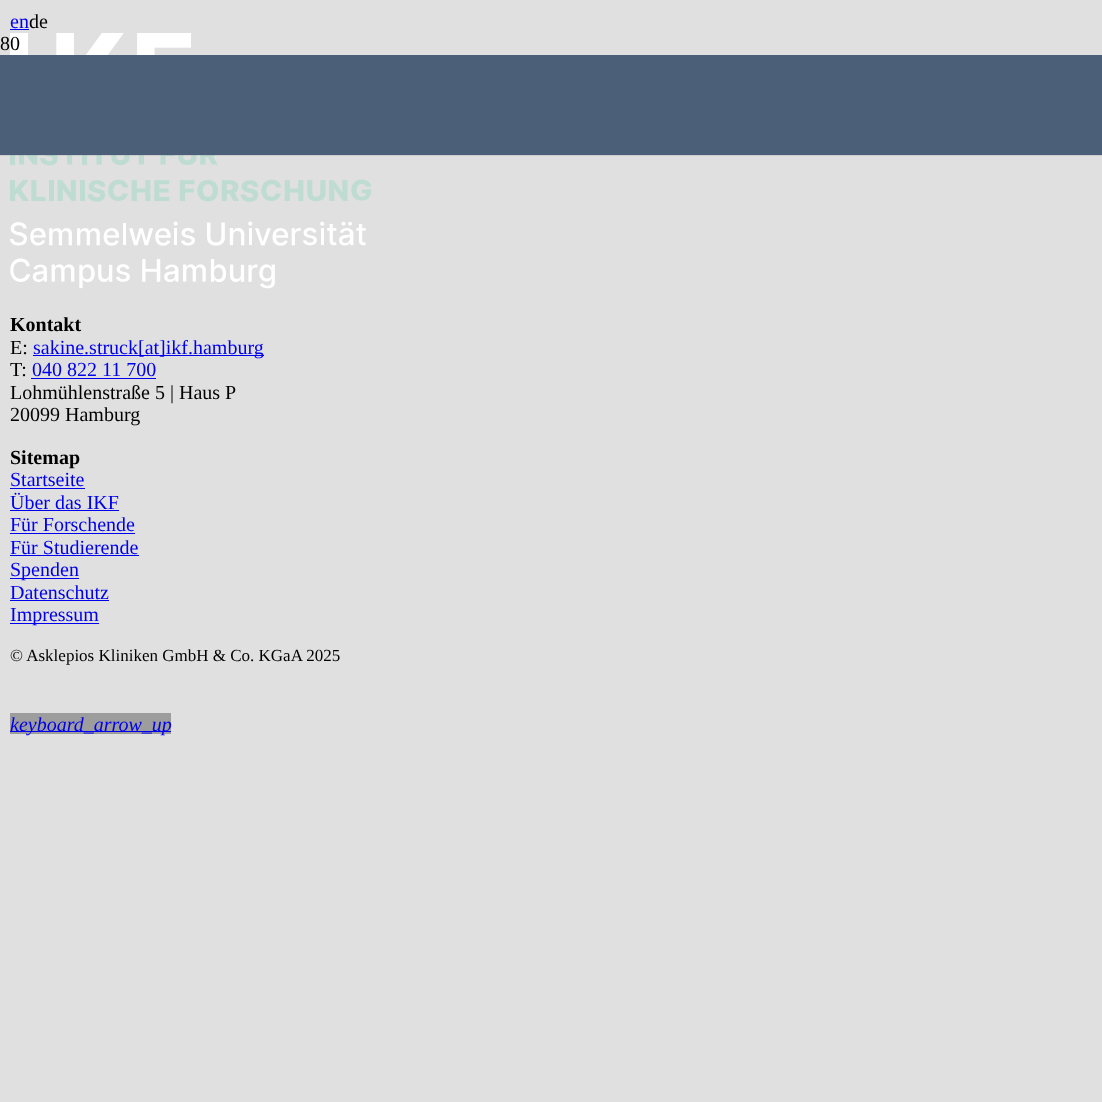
<!DOCTYPE html>
<meta charset="utf-8">
<style>body { margin: 0 } canvas { display: block }</style>
<canvas id="canvas" width="1102" height="1102"></canvas>
<img id="img1" src="images/1.png" hidden>
<script>
window.onload = function () {
    const canvas = document.getElementById('canvas');
    const context = canvas.getContext('2d');
    context.miterLimit = 4;
    context.fontKerning = 'normal';

    context.fillStyle = 'rgb(224, 224, 224)';
    context.fillRect(0, 0, 1102, 1102);
    context.fillStyle = 'rgb(0, 0, 238)';
    context.fillRect(10, 29, 19, 1);
    context.drawImage(document.getElementById('img1'), 10, 33, 361, 256);
    context.fillStyle = 'rgba(0, 0, 0, 0.08)';
    context.beginPath();
    context.moveTo(0, 155);
    context.lineTo(0, 156);
    context.lineTo(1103, 156);
    context.lineTo(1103, 56);
    context.lineTo(1102, 56);
    context.lineTo(1102, 155);
    context.closePath();
    context.fill();
    context.fillStyle = 'rgb(75, 95, 120)';
    context.fillRect(0, 55, 1102, 100);
    context.fillStyle = 'rgb(0, 0, 238)';
    context.fillRect(33, 355, 231, 1);
    context.fillRect(31, 378, 125, 1);
    context.fillRect(10, 488, 75, 1);
    context.fillRect(10, 510, 109, 1);
    context.fillRect(10, 533, 125, 1);
    context.fillRect(10, 555, 129, 1);
    context.fillRect(10, 578, 69, 1);
    context.fillRect(10, 600, 99, 1);
    context.fillRect(10, 623, 89, 1);
    context.fillStyle = 'rgb(157, 157, 157)';
    context.fillRect(10, 713, 161, 21);
    context.fillStyle = 'rgb(0, 0, 238)';
    context.fillRect(10, 731, 161, 1);
    context.font = '20px Liberation Serif';
    context.fillText('en', 10, 28);
    context.fillStyle = 'rgb(0, 0, 0)';
    context.fillText('de', 29, 28);
    context.fillText('80', 0, 50);
    context.font = 'bold 20px Liberation Serif';
    context.fillText('Kontakt', 10, 331);
    context.font = '20px Liberation Serif';
    context.fillText('E:', 10, 354);
    context.fillStyle = 'rgb(0, 0, 238)';
    context.fillText('sakine.struck[at]ikf.hamburg', 33, 354);
    context.fillStyle = 'rgb(0, 0, 0)';
    context.fillText('T:', 10, 376);
    context.fillStyle = 'rgb(0, 0, 238)';
    context.fillText('040 822 11 700', 32, 376);
    context.fillStyle = 'rgb(0, 0, 0)';
    context.fillText('Lohmühlenstraße 5 | Haus P', 10, 399);
    context.fillText('20099 Hamburg', 10, 421);
    context.font = 'bold 20px Liberation Serif';
    context.fillText('Sitemap', 10, 464);
    context.font = '20px Liberation Serif';
    context.fillStyle = 'rgb(0, 0, 238)';
    context.fillText('Startseite', 10, 486);
    context.fillText('Über das IKF', 10, 509);
    context.fillText('Für Forschende', 10, 531);
    context.fillText('Für Studierende', 10, 554);
    context.fillText('Spenden', 10, 576);
    context.fillText('Datenschutz', 10, 599);
    context.fillText('Impressum', 10, 621);
    context.font = '17px Liberation Serif';
    context.fillStyle = 'rgb(0, 0, 0)';
    context.fillText('© Asklepios Kliniken GmbH & Co. KGaA 2025', 10, 661);
    context.font = 'italic 20px Liberation Serif';
    context.fillStyle = 'rgb(0, 0, 238)';
    context.fillText('keyboard_arrow_up', 10, 731);
};
</script>
